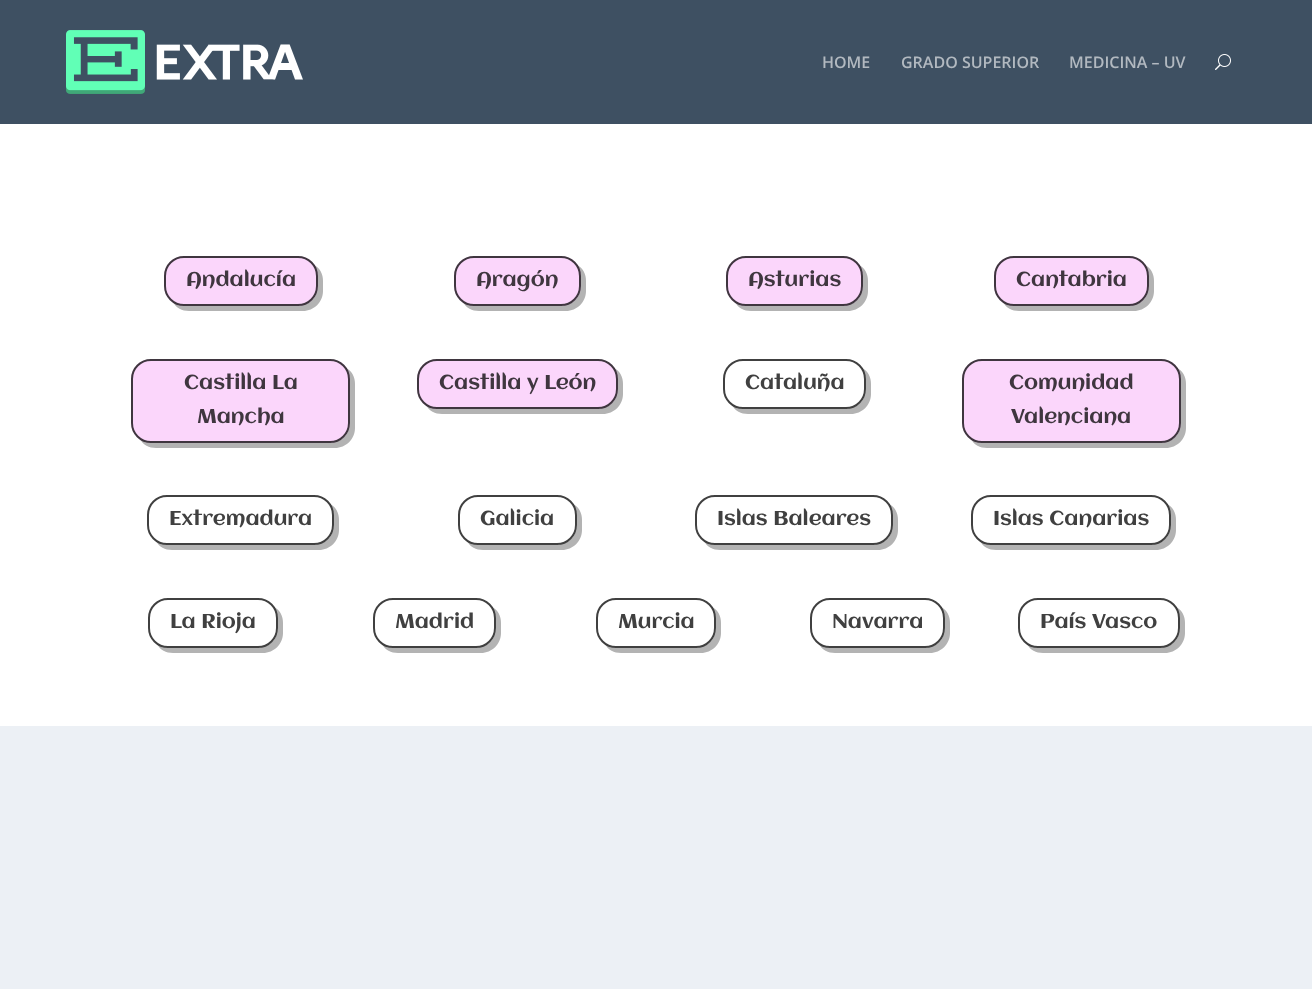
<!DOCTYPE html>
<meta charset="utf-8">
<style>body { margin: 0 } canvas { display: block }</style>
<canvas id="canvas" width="1312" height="989"></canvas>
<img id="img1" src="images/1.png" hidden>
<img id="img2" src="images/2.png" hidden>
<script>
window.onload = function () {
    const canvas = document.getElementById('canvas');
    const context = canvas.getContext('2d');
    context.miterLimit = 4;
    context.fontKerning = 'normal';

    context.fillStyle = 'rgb(236, 240, 245)';
    context.fillRect(0, 0, 1312, 989);
    context.fillStyle = 'rgb(62, 80, 98)';
    context.fillRect(0, 0, 1312, 124);
    context.drawImage(document.getElementById('img1'), 66, 30, 237, 64);
    context.drawImage(document.getElementById('img2'), 1215, 54, 16, 16);
    context.fillStyle = 'rgb(255, 255, 255)';
    context.fillRect(0, 124, 1312, 602);
    context.fillStyle = 'rgb(179, 179, 179)';
    context.beginPath();
    context.moveTo(173, 302);
    context.bezierCurveTo(176, 308, 182, 311, 189, 311);
    context.lineTo(303, 311);
    context.bezierCurveTo(314, 311, 323, 302, 323, 291);
    context.lineTo(323, 281);
    context.bezierCurveTo(323, 274, 320, 268, 314, 265);
    context.bezierCurveTo(317, 268, 318, 272, 318, 276);
    context.lineTo(318, 286);
    context.bezierCurveTo(318, 297, 309, 306, 298, 306);
    context.lineTo(184, 306);
    context.bezierCurveTo(180, 306, 176, 305, 173, 302);
    context.closePath();
    context.fill();
    context.fillStyle = 'rgba(232, 2, 228, 0.16)';
    context.beginPath();
    context.roundRect(164, 256, 154, 50, 20);
    context.fill();
    context.beginPath();
    context.roundRect(165, 257, 152, 48, 19);
    context.strokeStyle = 'rgba(0, 0, 0, 0.75)';
    context.lineWidth = 2;
    context.stroke();
    context.fillStyle = 'rgb(179, 179, 179)';
    context.beginPath();
    context.moveTo(463, 302);
    context.bezierCurveTo(466, 308, 472, 311, 479, 311);
    context.lineTo(566, 311);
    context.bezierCurveTo(577, 311, 586, 302, 586, 291);
    context.lineTo(586, 281);
    context.bezierCurveTo(586, 274, 583, 268, 577, 265);
    context.bezierCurveTo(580, 268, 581, 272, 581, 276);
    context.lineTo(581, 286);
    context.bezierCurveTo(581, 297, 572, 306, 561, 306);
    context.lineTo(474, 306);
    context.bezierCurveTo(470, 306, 466, 305, 463, 302);
    context.closePath();
    context.fill();
    context.fillStyle = 'rgba(232, 2, 228, 0.16)';
    context.beginPath();
    context.roundRect(454, 256, 127, 50, 20);
    context.fill();
    context.beginPath();
    context.roundRect(455, 257, 125, 48, 19);
    context.stroke();
    context.fillStyle = 'rgb(179, 179, 179)';
    context.beginPath();
    context.moveTo(735, 302);
    context.bezierCurveTo(738, 308, 744, 311, 751, 311);
    context.lineTo(848, 311);
    context.bezierCurveTo(859, 311, 868, 302, 868, 291);
    context.lineTo(868, 281);
    context.bezierCurveTo(868, 274, 865, 268, 859, 265);
    context.bezierCurveTo(862, 268, 863, 272, 863, 276);
    context.lineTo(863, 286);
    context.bezierCurveTo(863, 297, 854, 306, 843, 306);
    context.lineTo(746, 306);
    context.bezierCurveTo(742, 306, 738, 305, 735, 302);
    context.closePath();
    context.fill();
    context.fillStyle = 'rgba(232, 2, 228, 0.16)';
    context.beginPath();
    context.roundRect(726, 256, 137, 50, 20);
    context.fill();
    context.beginPath();
    context.roundRect(727, 257, 135, 48, 19);
    context.stroke();
    context.fillStyle = 'rgb(179, 179, 179)';
    context.beginPath();
    context.moveTo(1003, 302);
    context.bezierCurveTo(1006, 308, 1012, 311, 1019, 311);
    context.lineTo(1134, 311);
    context.bezierCurveTo(1145, 311, 1154, 302, 1154, 291);
    context.lineTo(1154, 281);
    context.bezierCurveTo(1154, 274, 1151, 268, 1145, 265);
    context.bezierCurveTo(1148, 268, 1149, 272, 1149, 276);
    context.lineTo(1149, 286);
    context.bezierCurveTo(1149, 297, 1140, 306, 1129, 306);
    context.lineTo(1014, 306);
    context.bezierCurveTo(1010, 306, 1006, 305, 1003, 302);
    context.closePath();
    context.fill();
    context.fillStyle = 'rgba(232, 2, 228, 0.16)';
    context.beginPath();
    context.roundRect(994, 256, 155, 50, 20);
    context.fill();
    context.beginPath();
    context.roundRect(995, 257, 153, 48, 19);
    context.stroke();
    context.fillStyle = 'rgb(179, 179, 179)';
    context.beginPath();
    context.moveTo(140, 439);
    context.bezierCurveTo(143, 445, 149, 448, 156, 448);
    context.lineTo(335, 448);
    context.bezierCurveTo(346, 448, 355, 439, 355, 428);
    context.lineTo(355, 384);
    context.bezierCurveTo(355, 377, 352, 371, 346, 368);
    context.bezierCurveTo(349, 371, 350, 375, 350, 379);
    context.lineTo(350, 423);
    context.bezierCurveTo(350, 434, 341, 443, 330, 443);
    context.lineTo(151, 443);
    context.bezierCurveTo(147, 443, 143, 442, 140, 439);
    context.closePath();
    context.fill();
    context.fillStyle = 'rgba(232, 2, 228, 0.16)';
    context.beginPath();
    context.roundRect(131, 359, 219, 84, 20);
    context.fill();
    context.beginPath();
    context.roundRect(132, 360, 217, 82, 19);
    context.stroke();
    context.fillStyle = 'rgb(179, 179, 179)';
    context.beginPath();
    context.moveTo(426, 405);
    context.bezierCurveTo(429, 411, 435, 414, 442, 414);
    context.lineTo(603, 414);
    context.bezierCurveTo(614, 414, 623, 405, 623, 394);
    context.lineTo(623, 384);
    context.bezierCurveTo(623, 377, 620, 371, 614, 368);
    context.bezierCurveTo(617, 371, 618, 375, 618, 379);
    context.lineTo(618, 389);
    context.bezierCurveTo(618, 400, 609, 409, 598, 409);
    context.lineTo(437, 409);
    context.bezierCurveTo(433, 409, 429, 408, 426, 405);
    context.closePath();
    context.fill();
    context.fillStyle = 'rgba(232, 2, 228, 0.16)';
    context.beginPath();
    context.roundRect(417, 359, 201, 50, 20);
    context.fill();
    context.beginPath();
    context.roundRect(418, 360, 199, 48, 19);
    context.stroke();
    context.fillStyle = 'rgb(179, 179, 179)';
    context.beginPath();
    context.moveTo(732, 405);
    context.bezierCurveTo(735, 411, 741, 414, 748, 414);
    context.lineTo(851, 414);
    context.bezierCurveTo(862, 414, 871, 405, 871, 394);
    context.lineTo(871, 384);
    context.bezierCurveTo(871, 377, 868, 371, 862, 368);
    context.bezierCurveTo(865, 371, 866, 375, 866, 379);
    context.lineTo(866, 389);
    context.bezierCurveTo(866, 400, 857, 409, 846, 409);
    context.lineTo(743, 409);
    context.bezierCurveTo(739, 409, 735, 408, 732, 405);
    context.closePath();
    context.fill();
    context.beginPath();
    context.roundRect(724, 360, 141, 48, 19);
    context.stroke();
    context.beginPath();
    context.moveTo(971, 439);
    context.bezierCurveTo(974, 445, 980, 448, 987, 448);
    context.lineTo(1166, 448);
    context.bezierCurveTo(1177, 448, 1186, 439, 1186, 428);
    context.lineTo(1186, 384);
    context.bezierCurveTo(1186, 377, 1183, 371, 1177, 368);
    context.bezierCurveTo(1180, 371, 1181, 375, 1181, 379);
    context.lineTo(1181, 423);
    context.bezierCurveTo(1181, 434, 1172, 443, 1161, 443);
    context.lineTo(982, 443);
    context.bezierCurveTo(978, 443, 974, 442, 971, 439);
    context.closePath();
    context.fill();
    context.fillStyle = 'rgba(232, 2, 228, 0.16)';
    context.beginPath();
    context.roundRect(962, 359, 219, 84, 20);
    context.fill();
    context.beginPath();
    context.roundRect(963, 360, 217, 82, 19);
    context.stroke();
    context.fillStyle = 'rgb(179, 179, 179)';
    context.beginPath();
    context.moveTo(156, 541);
    context.bezierCurveTo(159, 547, 165, 550, 172, 550);
    context.lineTo(319, 550);
    context.bezierCurveTo(330, 550, 339, 541, 339, 530);
    context.lineTo(339, 520);
    context.bezierCurveTo(339, 513, 336, 507, 330, 504);
    context.bezierCurveTo(333, 507, 334, 511, 334, 515);
    context.lineTo(334, 525);
    context.bezierCurveTo(334, 536, 325, 545, 314, 545);
    context.lineTo(167, 545);
    context.bezierCurveTo(163, 545, 159, 544, 156, 541);
    context.closePath();
    context.fill();
    context.beginPath();
    context.roundRect(148, 496, 185, 48, 19);
    context.stroke();
    context.beginPath();
    context.moveTo(467, 541);
    context.bezierCurveTo(470, 547, 476, 550, 483, 550);
    context.lineTo(562, 550);
    context.bezierCurveTo(573, 550, 582, 541, 582, 530);
    context.lineTo(582, 520);
    context.bezierCurveTo(582, 513, 579, 507, 573, 504);
    context.bezierCurveTo(576, 507, 577, 511, 577, 515);
    context.lineTo(577, 525);
    context.bezierCurveTo(577, 536, 568, 545, 557, 545);
    context.lineTo(478, 545);
    context.bezierCurveTo(474, 545, 470, 544, 467, 541);
    context.closePath();
    context.fill();
    context.beginPath();
    context.roundRect(459, 496, 117, 48, 19);
    context.stroke();
    context.beginPath();
    context.moveTo(704, 541);
    context.bezierCurveTo(707, 547, 713, 550, 720, 550);
    context.lineTo(878, 550);
    context.bezierCurveTo(889, 550, 898, 541, 898, 530);
    context.lineTo(898, 520);
    context.bezierCurveTo(898, 513, 895, 507, 889, 504);
    context.bezierCurveTo(892, 507, 893, 511, 893, 515);
    context.lineTo(893, 525);
    context.bezierCurveTo(893, 536, 884, 545, 873, 545);
    context.lineTo(715, 545);
    context.bezierCurveTo(711, 545, 707, 544, 704, 541);
    context.closePath();
    context.fill();
    context.beginPath();
    context.roundRect(696, 496, 196, 48, 19);
    context.stroke();
    context.beginPath();
    context.moveTo(980, 541);
    context.bezierCurveTo(983, 547, 989, 550, 996, 550);
    context.lineTo(1156, 550);
    context.bezierCurveTo(1167, 550, 1176, 541, 1176, 530);
    context.lineTo(1176, 520);
    context.bezierCurveTo(1176, 513, 1173, 507, 1167, 504);
    context.bezierCurveTo(1170, 507, 1171, 511, 1171, 515);
    context.lineTo(1171, 525);
    context.bezierCurveTo(1171, 536, 1162, 545, 1151, 545);
    context.lineTo(991, 545);
    context.bezierCurveTo(987, 545, 983, 544, 980, 541);
    context.closePath();
    context.fill();
    context.beginPath();
    context.roundRect(972, 496, 198, 48, 19);
    context.stroke();
    context.beginPath();
    context.moveTo(157, 644);
    context.bezierCurveTo(160, 650, 166, 653, 173, 653);
    context.lineTo(263, 653);
    context.bezierCurveTo(274, 653, 283, 644, 283, 633);
    context.lineTo(283, 623);
    context.bezierCurveTo(283, 616, 280, 610, 274, 607);
    context.bezierCurveTo(277, 610, 278, 614, 278, 618);
    context.lineTo(278, 628);
    context.bezierCurveTo(278, 639, 269, 648, 258, 648);
    context.lineTo(168, 648);
    context.bezierCurveTo(164, 648, 160, 647, 157, 644);
    context.closePath();
    context.fill();
    context.beginPath();
    context.roundRect(149, 599, 128, 48, 19);
    context.stroke();
    context.beginPath();
    context.moveTo(382, 644);
    context.bezierCurveTo(385, 650, 391, 653, 398, 653);
    context.lineTo(481, 653);
    context.bezierCurveTo(492, 653, 501, 644, 501, 633);
    context.lineTo(501, 623);
    context.bezierCurveTo(501, 616, 498, 610, 492, 607);
    context.bezierCurveTo(495, 610, 496, 614, 496, 618);
    context.lineTo(496, 628);
    context.bezierCurveTo(496, 639, 487, 648, 476, 648);
    context.lineTo(393, 648);
    context.bezierCurveTo(389, 648, 385, 647, 382, 644);
    context.closePath();
    context.fill();
    context.beginPath();
    context.roundRect(374, 599, 121, 48, 19);
    context.stroke();
    context.beginPath();
    context.moveTo(605, 644);
    context.bezierCurveTo(608, 650, 614, 653, 621, 653);
    context.lineTo(701, 653);
    context.bezierCurveTo(712, 653, 721, 644, 721, 633);
    context.lineTo(721, 623);
    context.bezierCurveTo(721, 616, 718, 610, 712, 607);
    context.bezierCurveTo(715, 610, 716, 614, 716, 618);
    context.lineTo(716, 628);
    context.bezierCurveTo(716, 639, 707, 648, 696, 648);
    context.lineTo(616, 648);
    context.bezierCurveTo(612, 648, 608, 647, 605, 644);
    context.closePath();
    context.fill();
    context.beginPath();
    context.roundRect(597, 599, 118, 48, 19);
    context.stroke();
    context.beginPath();
    context.moveTo(819, 644);
    context.bezierCurveTo(822, 650, 828, 653, 835, 653);
    context.lineTo(930, 653);
    context.bezierCurveTo(941, 653, 950, 644, 950, 633);
    context.lineTo(950, 623);
    context.bezierCurveTo(950, 616, 947, 610, 941, 607);
    context.bezierCurveTo(944, 610, 945, 614, 945, 618);
    context.lineTo(945, 628);
    context.bezierCurveTo(945, 639, 936, 648, 925, 648);
    context.lineTo(830, 648);
    context.bezierCurveTo(826, 648, 822, 647, 819, 644);
    context.closePath();
    context.fill();
    context.beginPath();
    context.roundRect(811, 599, 133, 48, 19);
    context.stroke();
    context.beginPath();
    context.moveTo(1027, 644);
    context.bezierCurveTo(1030, 650, 1036, 653, 1043, 653);
    context.lineTo(1165, 653);
    context.bezierCurveTo(1176, 653, 1185, 644, 1185, 633);
    context.lineTo(1185, 623);
    context.bezierCurveTo(1185, 616, 1182, 610, 1176, 607);
    context.bezierCurveTo(1179, 610, 1180, 614, 1180, 618);
    context.lineTo(1180, 628);
    context.bezierCurveTo(1180, 639, 1171, 648, 1160, 648);
    context.lineTo(1038, 648);
    context.bezierCurveTo(1034, 648, 1030, 647, 1027, 644);
    context.closePath();
    context.fill();
    context.beginPath();
    context.roundRect(1019, 599, 160, 48, 19);
    context.stroke();
    context.font = '600 16px Open Sans';
    context.fillStyle = 'rgb(178, 185, 192)';
    context.fillText('HOME', 822, 68);
    context.fillText('GRADO SUPERIOR', 901, 68);
    context.fillText('MEDICINA – UV', 1069, 68);
    context.font = '20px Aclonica';
    context.fillStyle = 'rgb(63, 54, 63)';
    context.fillText('Andalucía', 186, 286);
    context.fillText('Aragón', 476, 286);
    context.fillText('Asturias', 748, 286);
    context.fillText('Cantabria', 1016, 286);
    context.fillText('Castilla La', 184, 389);
    context.fillText('Mancha', 197, 423);
    context.fillText('Castilla y León', 439, 389);
    context.fillStyle = 'rgb(64, 64, 64)';
    context.fillText('Cataluña', 745, 389);
    context.fillStyle = 'rgb(63, 54, 63)';
    context.fillText('Comunidad', 1009, 389);
    context.fillText('Valenciana', 1011, 423);
    context.fillStyle = 'rgb(64, 64, 64)';
    context.fillText('Extremadura', 169, 525);
    context.fillText('Galicia', 480, 525);
    context.fillText('Islas Baleares', 717, 525);
    context.fillText('Islas Canarias', 993, 525);
    context.fillText('La Rioja', 170, 628);
    context.fillText('Madrid', 395, 628);
    context.fillText('Murcia', 618, 628);
    context.fillText('Navarra', 832, 628);
    context.fillText('País Vasco', 1040, 628);
};
</script>
